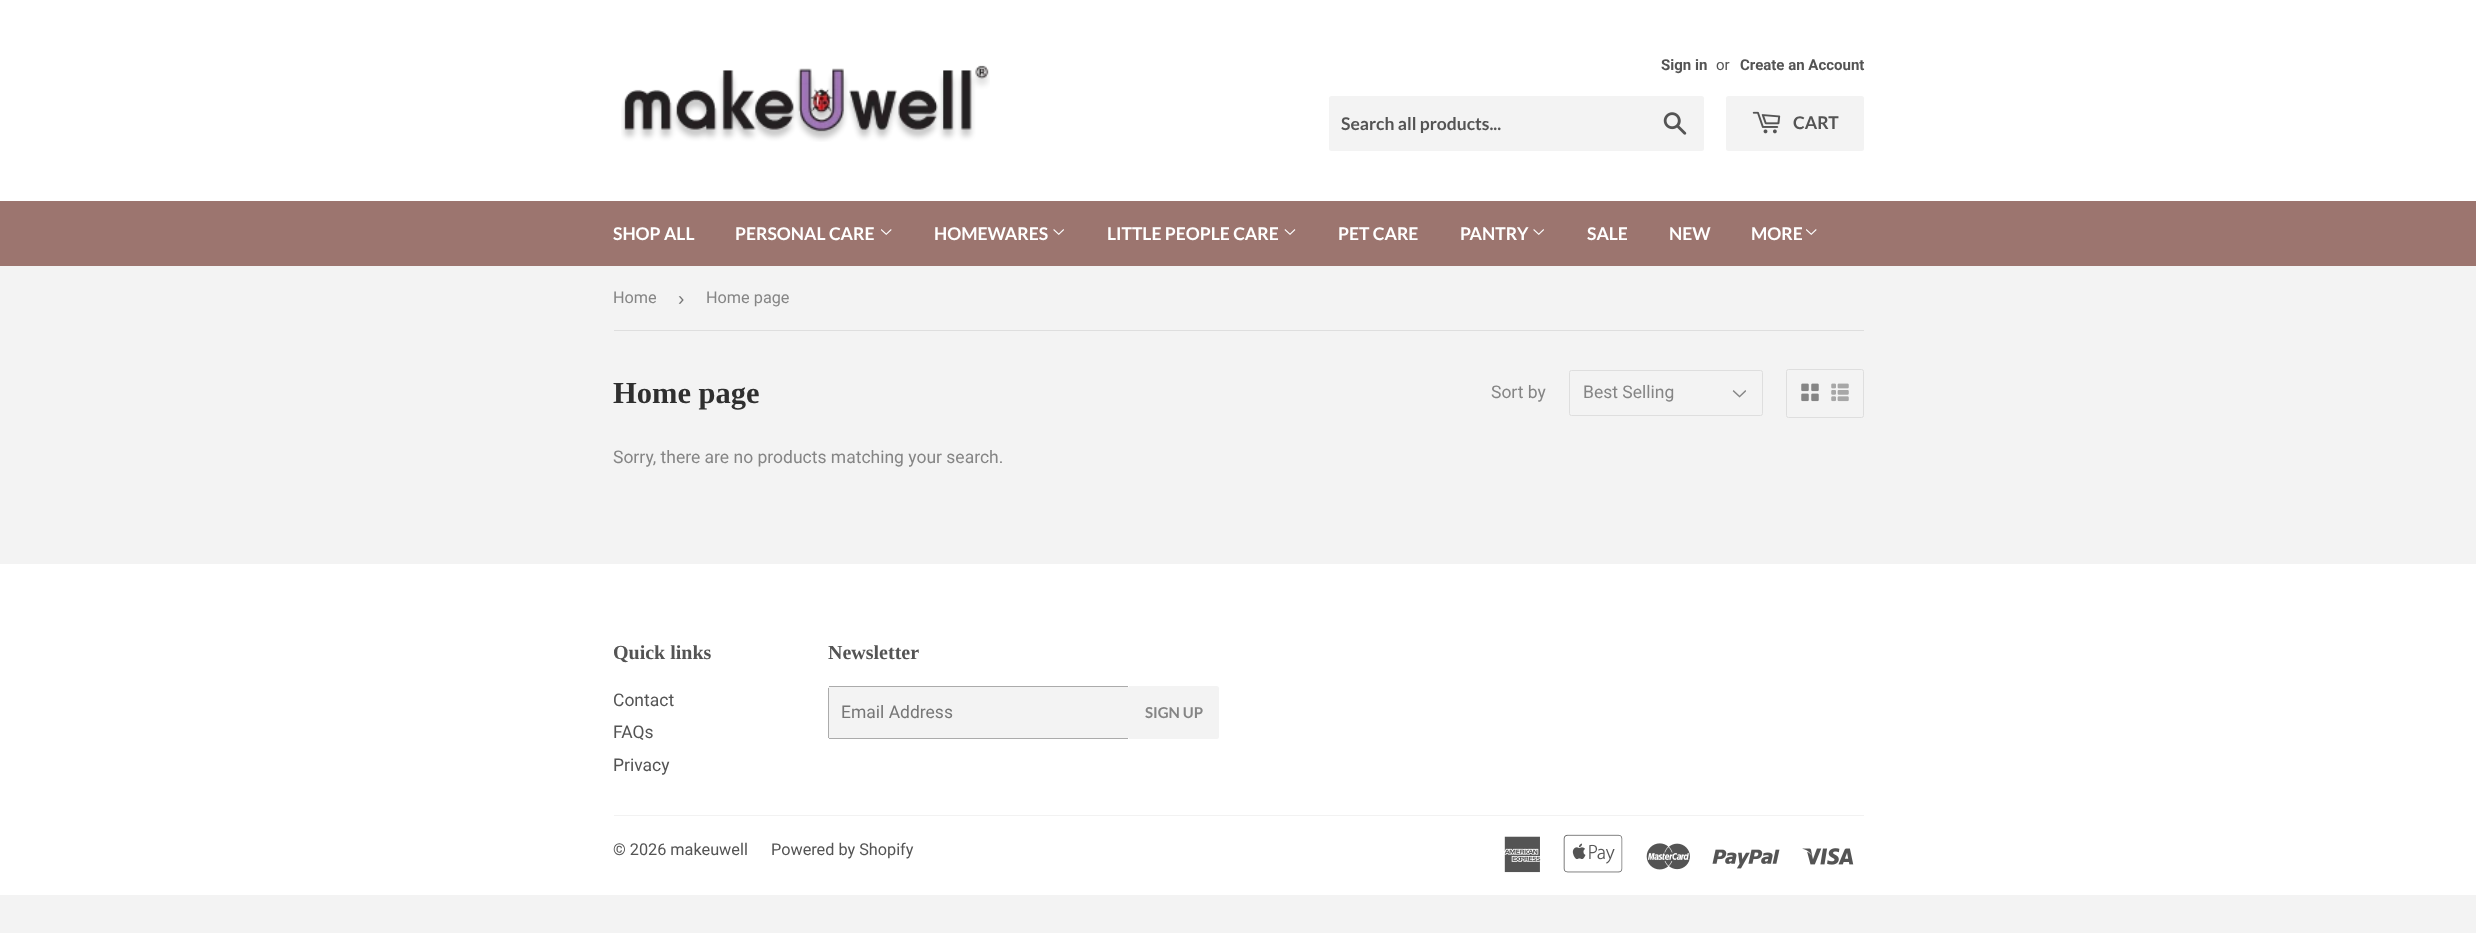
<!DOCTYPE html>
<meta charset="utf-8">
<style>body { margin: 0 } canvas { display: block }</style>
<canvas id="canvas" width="2476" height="933"></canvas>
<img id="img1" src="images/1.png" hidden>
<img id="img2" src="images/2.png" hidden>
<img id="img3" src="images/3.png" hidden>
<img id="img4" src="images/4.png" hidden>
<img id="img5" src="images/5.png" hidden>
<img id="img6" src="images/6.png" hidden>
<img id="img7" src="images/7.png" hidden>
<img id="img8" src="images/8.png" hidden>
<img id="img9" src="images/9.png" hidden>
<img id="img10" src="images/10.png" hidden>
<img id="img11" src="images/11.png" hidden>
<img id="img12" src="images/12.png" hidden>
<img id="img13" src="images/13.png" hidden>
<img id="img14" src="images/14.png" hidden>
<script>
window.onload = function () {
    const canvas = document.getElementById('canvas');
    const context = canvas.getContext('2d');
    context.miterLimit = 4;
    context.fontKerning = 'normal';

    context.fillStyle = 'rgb(243, 243, 243)';
    context.fillRect(0, 0, 2476, 933);
    context.fillStyle = 'rgb(255, 255, 255)';
    context.fillRect(0, 0, 2476, 201);
    context.drawImage(document.getElementById('img1'), 621, 65, 369, 77);
    context.fillStyle = 'rgb(243, 243, 243)';
    context.beginPath();
    context.roundRect(1329, 96, 375, 55, 2.5);
    context.fill();
    context.drawImage(document.getElementById('img2'), 1663, 112, 24, 23);
    context.beginPath();
    context.roundRect(1726, 96, 138, 55, 2.5);
    context.fill();
    context.drawImage(document.getElementById('img3'), 1752, 111, 29, 23);
    context.fillStyle = 'rgb(156, 117, 111)';
    context.fillRect(0, 201, 2476, 65);
    context.drawImage(document.getElementById('img4'), 881, 229, 11, 6);
    context.drawImage(document.getElementById('img5'), 1053, 229, 11, 6);
    context.drawImage(document.getElementById('img6'), 1284, 229, 12, 6);
    context.drawImage(document.getElementById('img5'), 1533, 229, 11, 6);
    context.drawImage(document.getElementById('img4'), 1806, 229, 11, 6);
    context.fillStyle = 'rgb(222, 222, 222)';
    context.fillRect(614, 330, 1250, 1);
    context.drawImage(document.getElementById('img7'), 1732, 390, 14, 8);
    context.beginPath();
    context.roundRect(1569.5, 370.5, 193, 45, 2);
    context.strokeStyle = 'rgb(222, 222, 222)';
    context.stroke();
    context.beginPath();
    context.roundRect(1786.5, 369.5, 77, 48, 2);
    context.stroke();
    context.drawImage(document.getElementById('img8'), 1801, 383, 18, 19);
    context.drawImage(document.getElementById('img9'), 1831, 383, 18, 19);
    context.fillStyle = 'rgb(255, 255, 255)';
    context.fillRect(0, 564, 2476, 331);
    context.fillStyle = 'rgb(243, 243, 243)';
    context.beginPath();
    context.roundRect(828, 686, 301, 53, 2.5);
    context.fill();
    context.fillStyle = 'rgb(171, 171, 171)';
    context.fillRect(829, 686, 299, 1);
    context.fillRect(829, 738, 299, 1);
    context.fillRect(828, 688, 1, 50);
    context.fillStyle = 'rgb(243, 243, 243)';
    context.beginPath();
    context.roundRect(1129, 686, 90, 53, [0, 2.5, 2.5, 0]);
    context.fill();
    context.fillStyle = 'rgb(242, 242, 242)';
    context.fillRect(614, 815, 1250, 1);
    context.drawImage(document.getElementById('img10'), 1504, 836, 37, 37);
    context.drawImage(document.getElementById('img11'), 1563, 834, 60, 39);
    context.drawImage(document.getElementById('img12'), 1646, 843, 44, 27);
    context.drawImage(document.getElementById('img13'), 1712, 849, 68, 20);
    context.drawImage(document.getElementById('img14'), 1802, 848, 52, 17);
    context.font = 'bold 15px Roboto';
    context.fillStyle = 'rgb(84, 84, 84)';
    context.fillText('Sign in', 1661, 70);
    context.font = '15px Roboto';
    context.fillText('or', 1716, 70);
    context.font = 'bold 15px Roboto';
    context.fillText('Create an Account', 1740, 70);
    context.font = 'bold 17.5px Lato';
    context.fillText('Search all products...', 1341, 130);
    context.fillText('CART', 1793, 129);
    context.fillStyle = 'rgb(255, 255, 255)';
    context.fillText('SHOP ALL', 613, 240);
    context.fillText('PERSONAL CARE', 735, 240);
    context.fillText('HOMEWARES', 934, 240);
    context.fillText('LITTLE PEOPLE CARE', 1107, 240);
    context.fillText('PET CARE', 1338, 240);
    context.fillText('PANTRY', 1460, 240);
    context.fillText('SALE', 1587, 240);
    context.fillText('NEW', 1669, 240);
    context.fillText('MORE', 1751, 240);
    context.font = '16.25px Roboto';
    context.fillStyle = 'rgb(133, 133, 133)';
    context.fillText('Home', 613, 303);
    context.font = '19px Liberation Sans';
    context.fillStyle = 'rgb(118, 118, 118)';
    context.fillText('›', 678, 305);
    context.font = '16.25px Roboto';
    context.fillStyle = 'rgb(133, 133, 133)';
    context.fillText('Home page', 706, 303);
    context.font = 'bold 30.5px Liberation Serif';
    context.fillStyle = 'rgb(47, 47, 47)';
    context.fillText('Home page', 613, 403);
    context.font = '17.5px Roboto';
    context.fillStyle = 'rgb(133, 133, 133)';
    context.fillText('Sort by', 1491, 398);
    context.fillText('Best Selling', 1583, 398);
    context.fillText('Sorry, there are no products matching your search.', 613, 463);
    context.font = 'bold 20px Liberation Serif';
    context.fillStyle = 'rgb(84, 84, 84)';
    context.fillText('Quick links', 613, 659);
    context.font = '17.5px Roboto';
    context.fillText('Contact', 613, 706);
    context.fillText('FAQs', 613, 738);
    context.fillText('Privacy', 613, 771);
    context.font = 'bold 20px Liberation Serif';
    context.fillText('Newsletter', 828, 659);
    context.font = '17.5px Roboto';
    context.fillStyle = 'rgb(118, 118, 118)';
    context.fillText('Email Address', 841, 718);
    context.font = 'bold 15px Lato';
    context.fillStyle = 'rgb(133, 133, 133)';
    context.fillText('SIGN UP', 1145, 718);
    context.font = '16.25px Roboto';
    context.fillStyle = 'rgb(84, 84, 84)';
    context.fillText('© 2026 makeuwell', 613, 855);
    context.fillText('Powered by Shopify', 771, 855);
};
</script>
